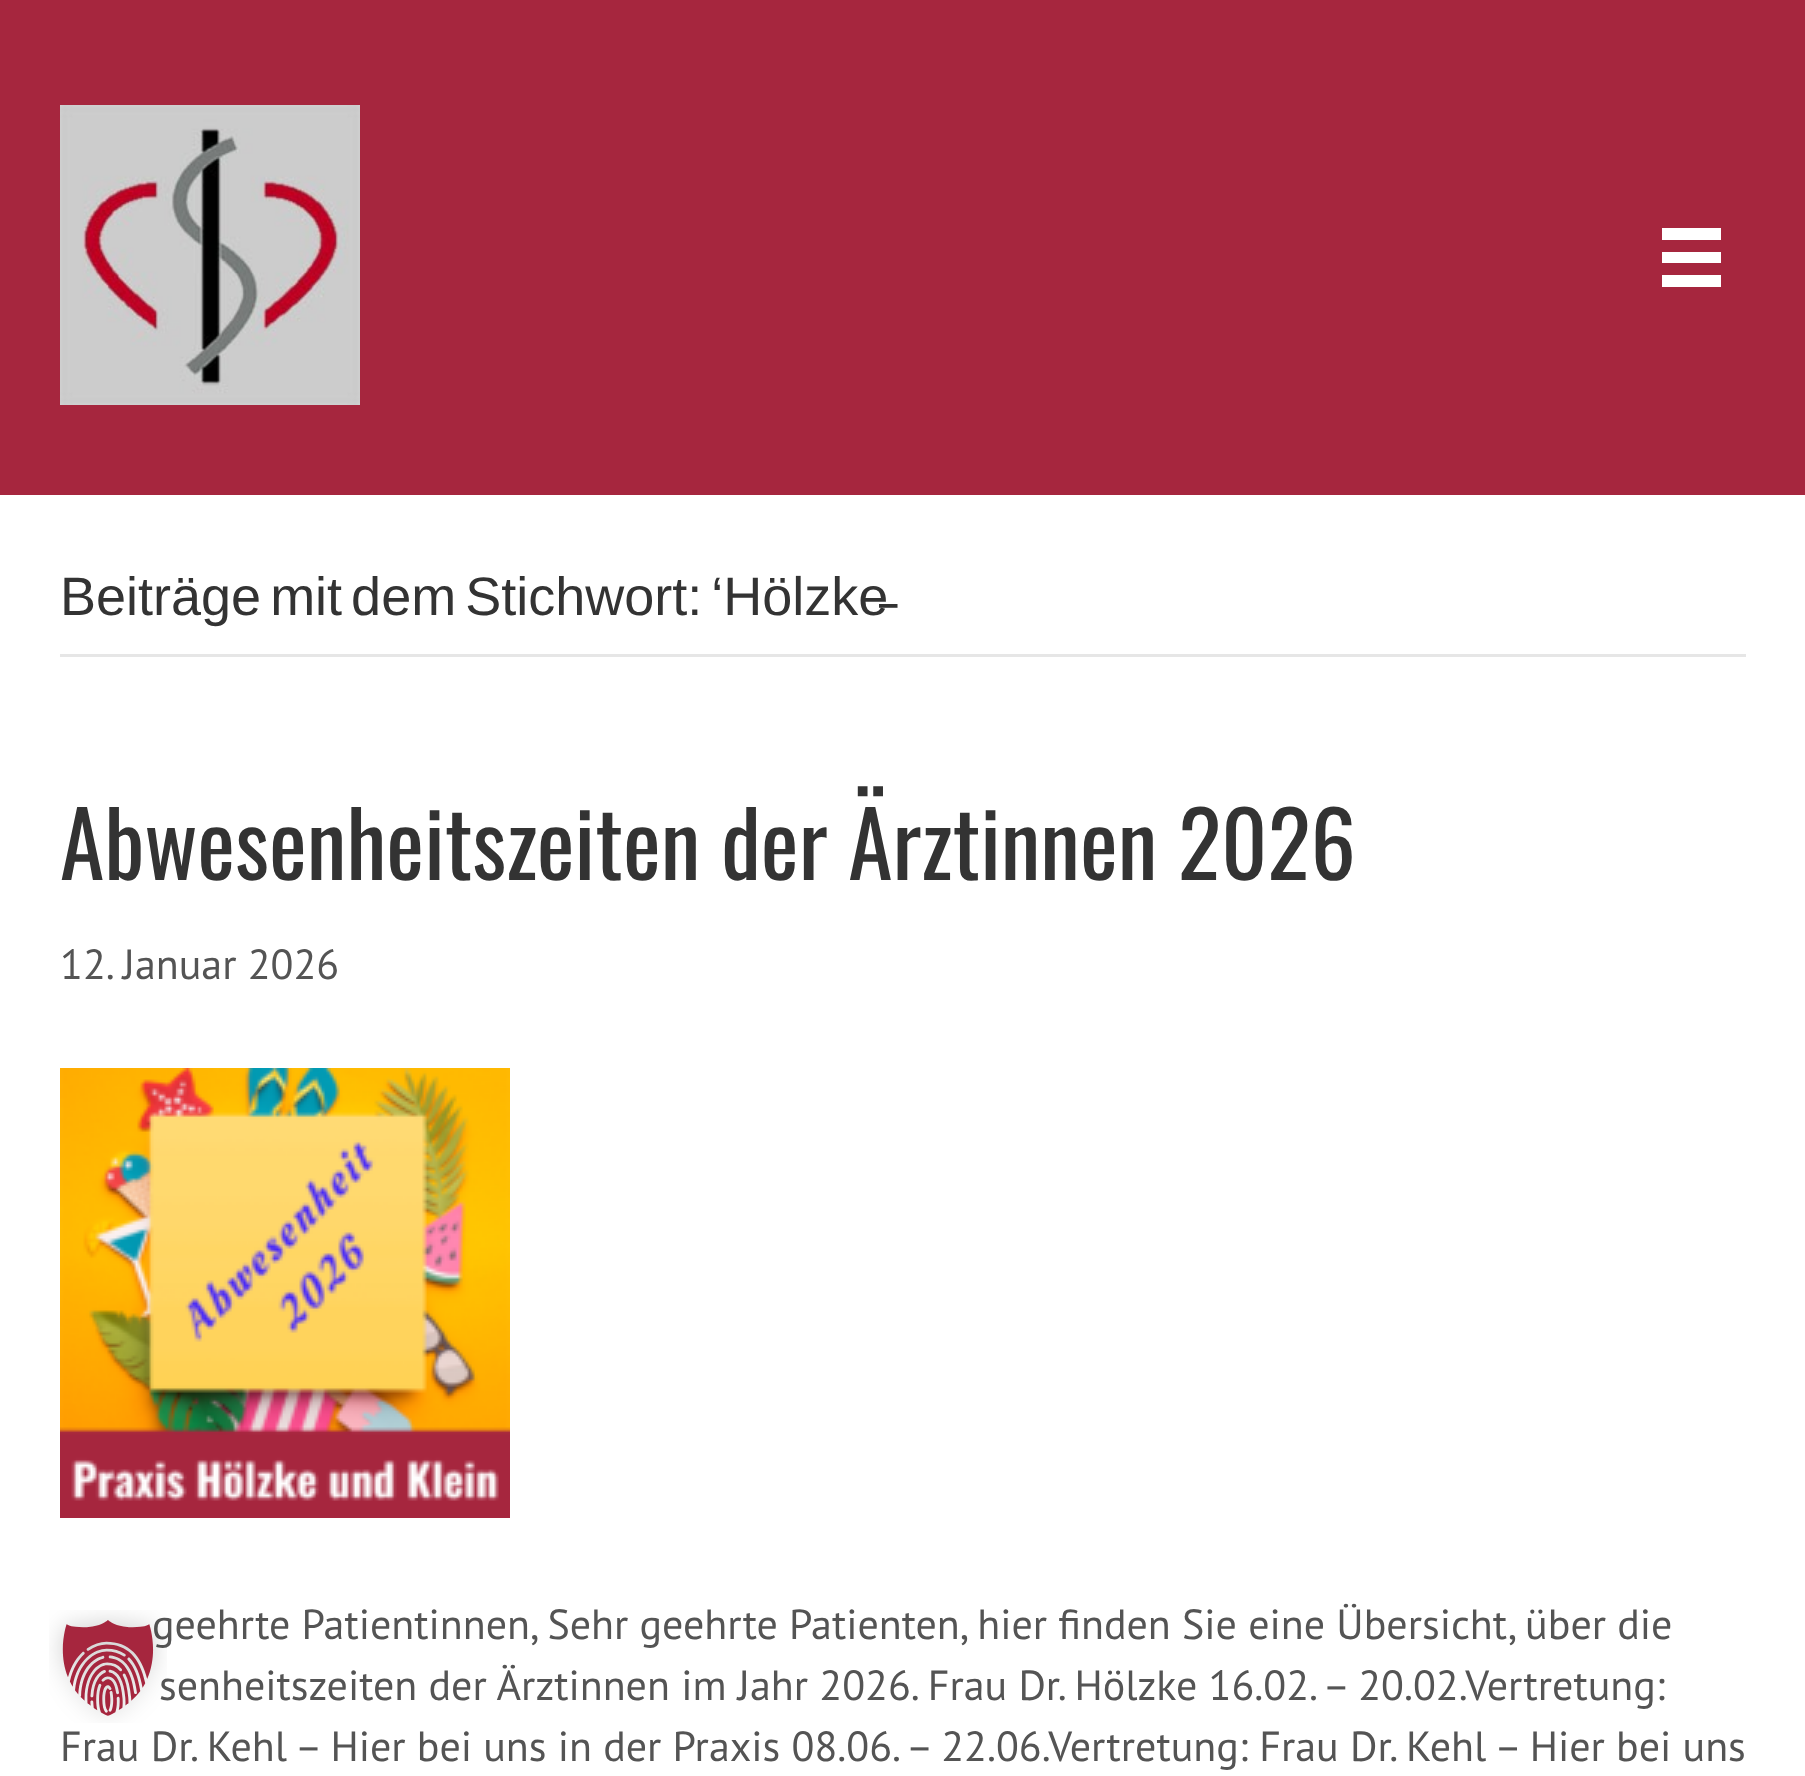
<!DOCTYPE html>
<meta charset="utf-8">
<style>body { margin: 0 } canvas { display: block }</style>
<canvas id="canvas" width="1805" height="1776"></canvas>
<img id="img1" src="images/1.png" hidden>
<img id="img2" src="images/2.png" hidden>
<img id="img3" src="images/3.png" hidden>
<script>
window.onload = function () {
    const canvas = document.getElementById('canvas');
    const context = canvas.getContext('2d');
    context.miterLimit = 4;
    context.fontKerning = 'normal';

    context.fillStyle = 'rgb(255, 255, 255)';
    context.fillRect(0, 0, 1805, 1776);
    context.fillStyle = 'rgb(166, 38, 62)';
    context.fillRect(0, 0, 1805, 495);
    context.drawImage(document.getElementById('img1'), 60, 105, 300, 300);
    context.fillStyle = 'rgb(255, 255, 255)';
    context.fillRect(1662, 228, 59, 12);
    context.fillRect(1662, 252, 59, 11);
    context.fillRect(1662, 275, 59, 12);
    context.fillStyle = 'rgb(230, 230, 230)';
    context.fillRect(60, 654, 1686, 3);
    context.drawImage(document.getElementById('img2'), 60, 1068, 450, 450);
    context.wordSpacing = '-6px';
    context.font = '54px Liberation Sans';
    context.fillStyle = 'rgb(51, 51, 51)';
    context.fillText('Beiträge mit dem Stichwort: ‘Hölzke̵', 60, 615);
    context.wordSpacing = '0px';
    context.font = '90px Oswald';
    context.fillText('Abwesenheitszeiten der Ärztinnen 2026', 60, 880);
    context.font = '42px PT Sans';
    context.fillStyle = 'rgb(84, 84, 84)';
    context.fillText('12. Januar 2026', 60, 979);
    context.fillText('geehrte Patientinnen, Sehr geehrte Patienten, hier finden Sie eine Übersicht, über die', 152, 1639);
    context.fillText('senheitszeiten der Ärztinnen im Jahr 2026. Frau Dr. Hölzke 16.02. – 20.02.Vertretung:', 159, 1700);
    context.fillText('Frau Dr. Kehl – Hier bei uns in der Praxis 08.06. – 22.06.Vertretung: Frau Dr. Kehl – Hier bei uns', 60, 1761);
    context.drawImage(document.getElementById('img3'), 49, 1610, 118, 113);
};
</script>
